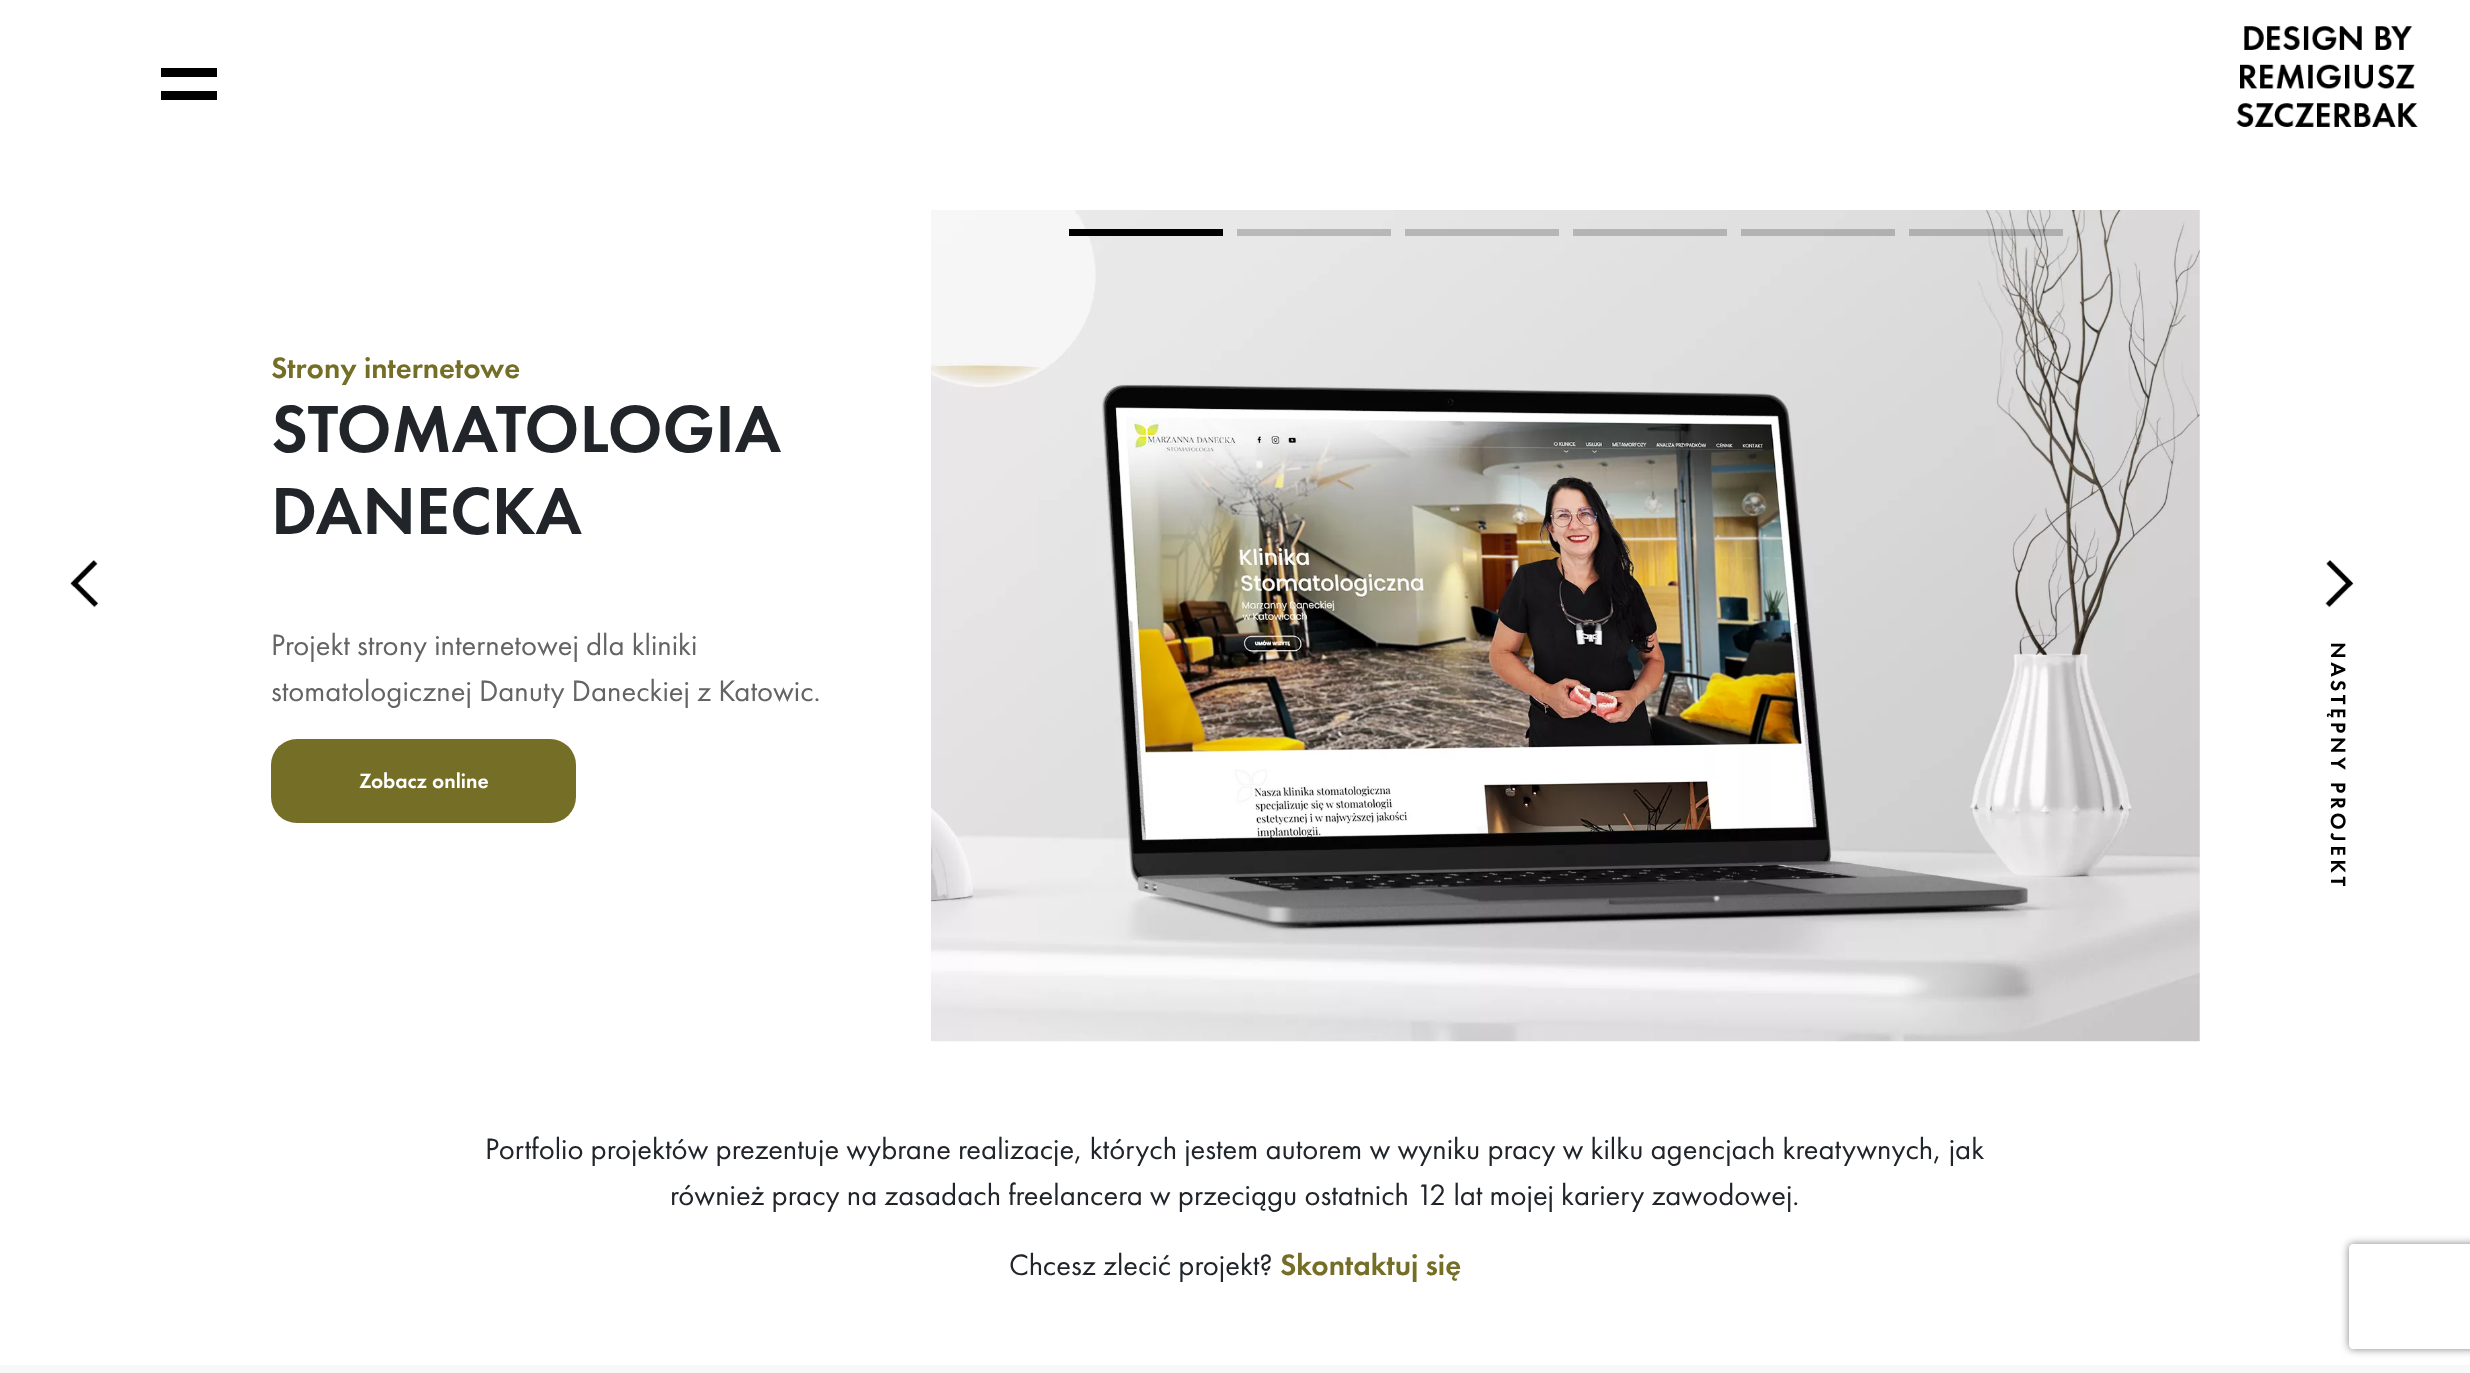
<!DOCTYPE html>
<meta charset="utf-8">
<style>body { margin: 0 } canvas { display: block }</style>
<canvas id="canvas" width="2470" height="1373"></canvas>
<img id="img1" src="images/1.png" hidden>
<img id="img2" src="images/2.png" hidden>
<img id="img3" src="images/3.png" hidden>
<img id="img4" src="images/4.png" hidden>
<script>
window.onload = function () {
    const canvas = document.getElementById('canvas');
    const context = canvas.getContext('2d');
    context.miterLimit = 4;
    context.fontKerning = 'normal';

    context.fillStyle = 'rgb(255, 255, 255)';
    context.fillRect(0, 0, 2470, 1373);
    context.fillStyle = 'rgb(0, 0, 0)';
    context.fillRect(161, 68, 56, 9);
    context.fillRect(161, 91, 56, 9);
    context.drawImage(document.getElementById('img1'), 2236, 26, 182, 101);
    context.drawImage(document.getElementById('img2'), 70, 560, 28, 48);
    context.fillStyle = 'rgb(117, 110, 38)';
    context.beginPath();
    context.roundRect(271, 739, 305, 84, 26);
    context.fill();
    context.drawImage(document.getElementById('img3'), 931, 210, 1269, 832);
    context.fillStyle = 'rgb(0, 0, 0)';
    context.fillRect(1069, 229, 154, 7);
    context.fillStyle = 'rgba(0, 0, 0, 0.2)';
    context.fillRect(1237, 229, 154, 7);
    context.fillStyle = 'rgb(182, 182, 182)';
    context.fillRect(1405, 229, 154, 7);
    context.fillStyle = 'rgba(0, 0, 0, 0.2)';
    context.fillRect(1573, 229, 154, 7);
    context.fillRect(1741, 229, 154, 7);
    context.fillRect(1909, 229, 154, 7);
    context.drawImage(document.getElementById('img4'), 2325, 560, 29, 48);
    context.save();
    context.beginPath();
    context.moveTo(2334, 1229);
    context.lineTo(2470, 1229);
    context.lineTo(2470, 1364);
    context.lineTo(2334, 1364);
    context.closePath();
    context.moveTo(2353, 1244);
    context.lineTo(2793, 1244);
    context.bezierCurveTo(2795, 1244, 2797, 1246, 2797, 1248);
    context.lineTo(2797, 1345);
    context.bezierCurveTo(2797, 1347, 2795, 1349, 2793, 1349);
    context.lineTo(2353, 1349);
    context.bezierCurveTo(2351, 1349, 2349, 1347, 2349, 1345);
    context.lineTo(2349, 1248);
    context.bezierCurveTo(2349, 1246, 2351, 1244, 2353, 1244);
    context.closePath();
    context.clip('evenodd');
    context.fillStyle = 'rgb(128, 128, 128)';
    context.filter = 'blur(4.5px)';
    context.beginPath();
    context.roundRect(2349, 1244, 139, 105, 4);
    context.fill();
    context.filter = 'none';
    context.restore();
    context.fillStyle = 'rgb(248, 248, 248)';
    context.fillRect(0, 1365, 2470, 8);
    context.font = '500 30.6px Futura PT';
    context.fillStyle = 'rgb(117, 110, 38)';
    context.fillText('Strony internetowe', 271, 378);
    context.font = '500 69px Futura PT';
    context.fillStyle = 'rgb(33, 37, 41)';
    context.fillText('STOMATOLOGIA', 271, 452);
    context.fillText('DANECKA', 271, 534);
    context.font = '30.6px Futura PT';
    context.fillStyle = 'rgb(100, 100, 100)';
    context.fillText('Projekt strony internetowej dla kliniki', 271, 655);
    context.fillText('stomatologicznej Danuty Daneckiej z Katowic.', 271, 701);
    context.font = '500 21.5px Futura PT';
    context.fillStyle = 'rgb(255, 255, 255)';
    context.fillText('Zobacz online', 359, 788);
    context.font = '30.6px Futura PT';
    context.fillStyle = 'rgb(33, 37, 41)';
    context.fillText('Portfolio projektów prezentuje wybrane realizacje, których jestem autorem w wyniku pracy w kilku agencjach kreatywnych, jak', 485, 1159);
    context.fillText('również pracy na zasadach freelancera w przeciągu ostatnich 12 lat mojej kariery zawodowej.', 670, 1205);
    context.fillText('Chcesz zlecić projekt?', 1009, 1275);
    context.font = '500 30.6px Futura PT';
    context.fillStyle = 'rgb(117, 110, 38)';
    context.fillText('Skontaktuj się', 1280, 1275);
    context.letterSpacing = '3.5px';
    context.font = '500 21.5px Futura PT';
    context.fillStyle = 'rgb(0, 0, 0)';
    context.save();
    context.translate(2331, 642);
    context.rotate(90 * Math.PI / 180);
    context.fillText('NASTĘPNY PROJEKT', 0, 0);
    context.restore();
};
</script>
